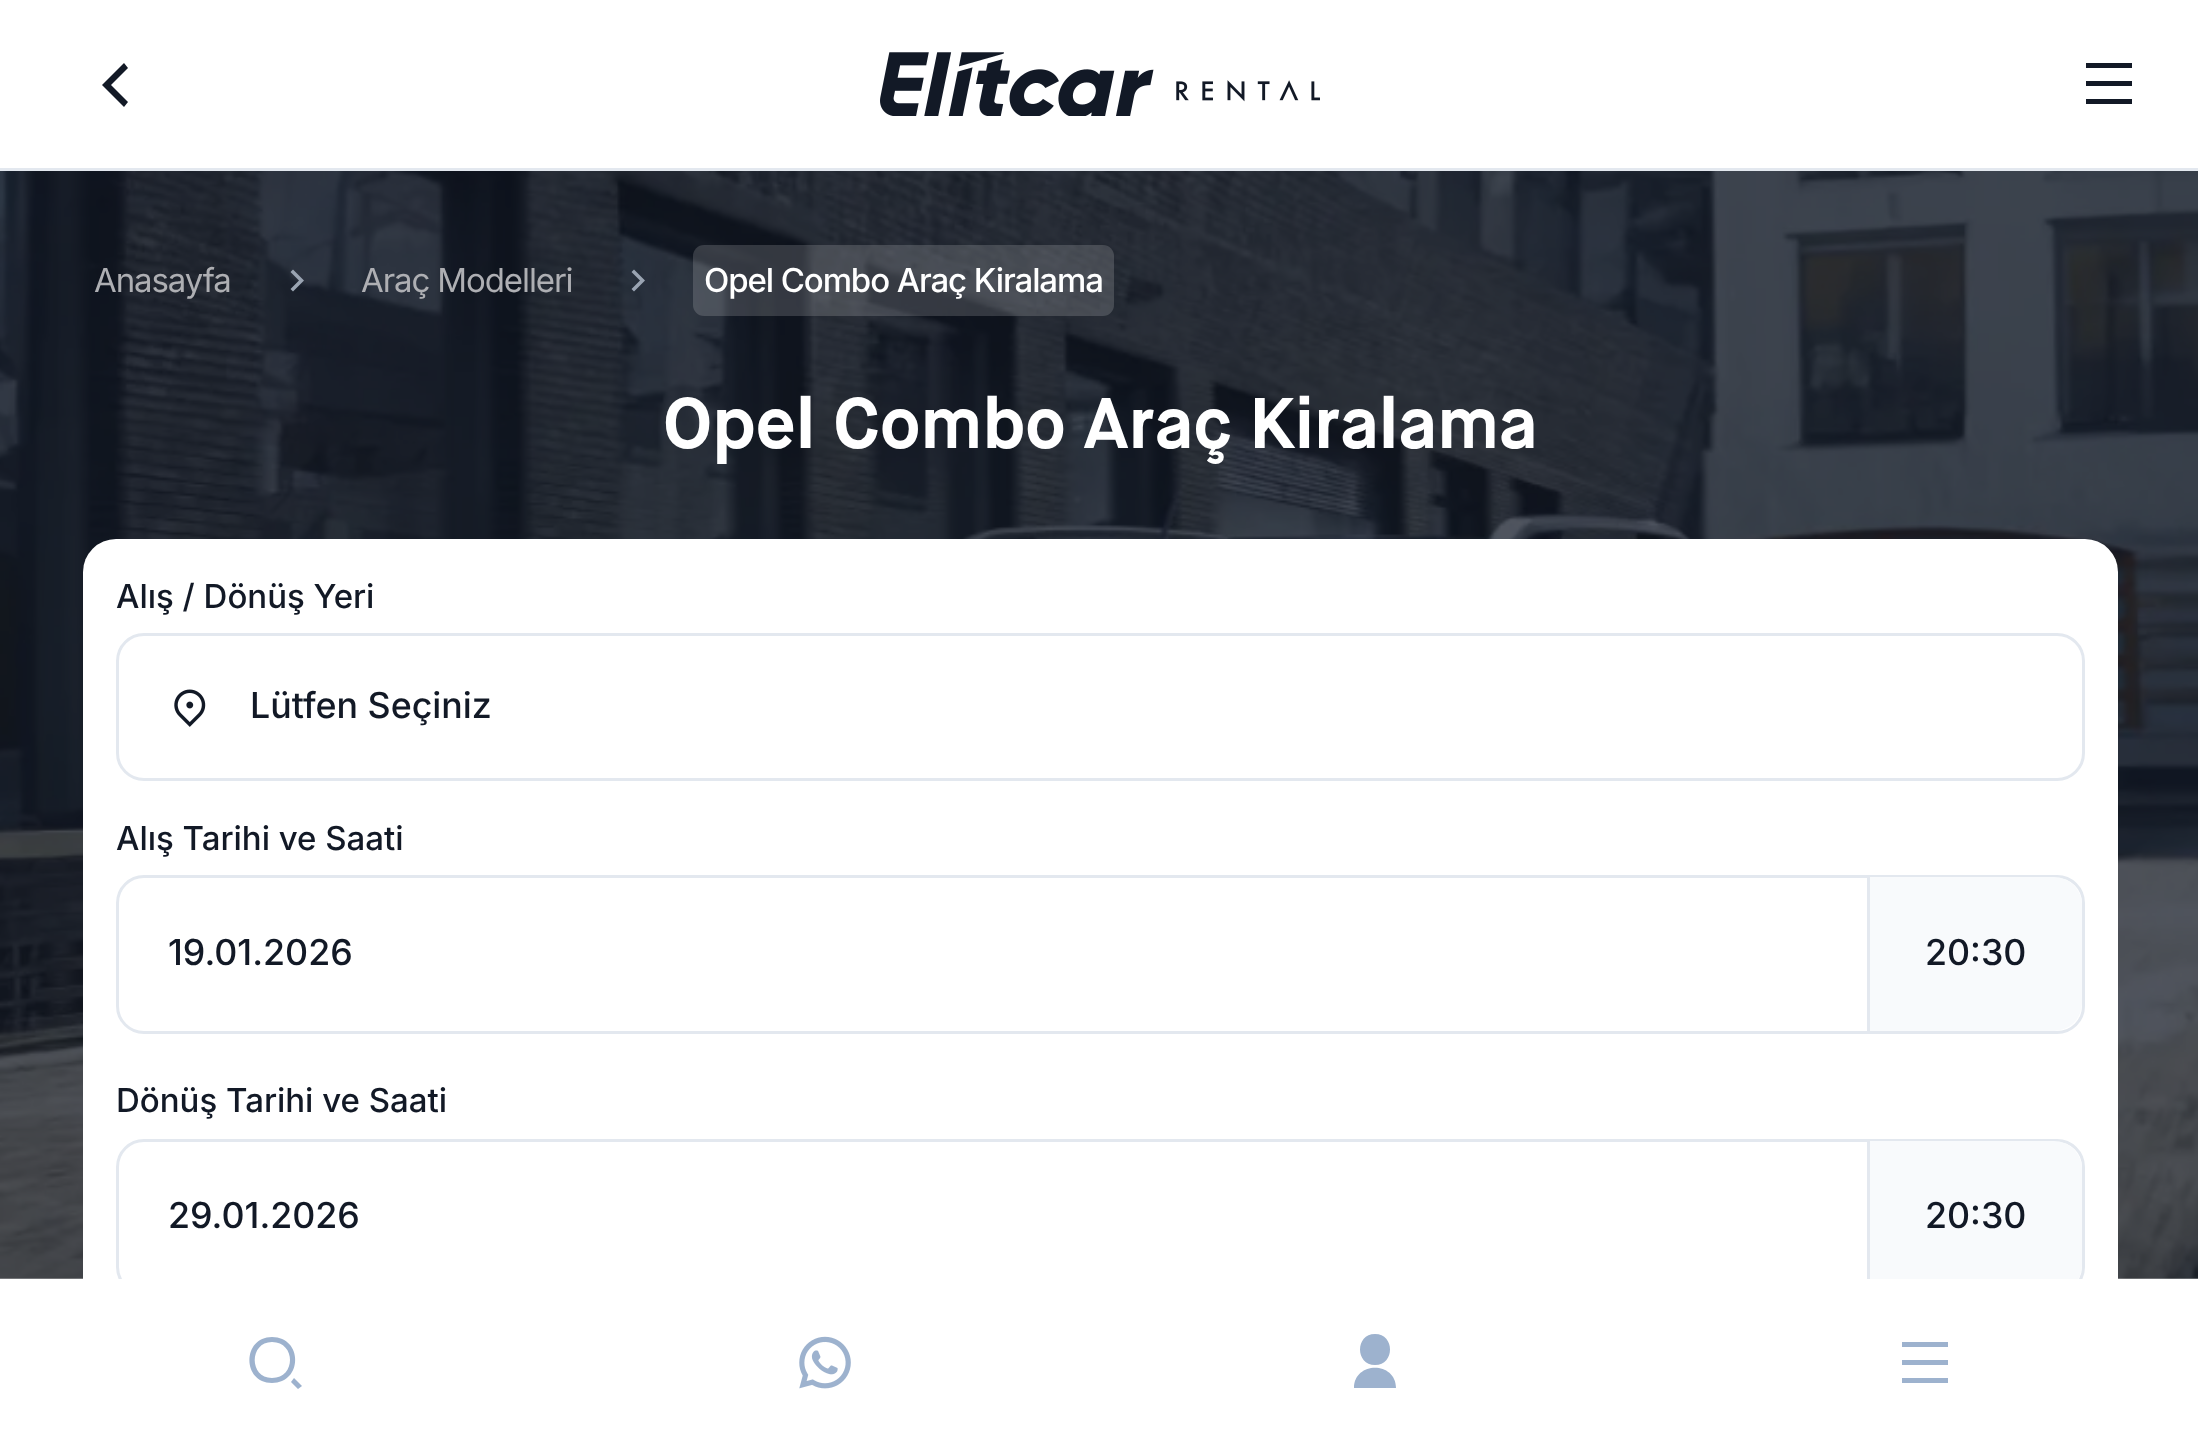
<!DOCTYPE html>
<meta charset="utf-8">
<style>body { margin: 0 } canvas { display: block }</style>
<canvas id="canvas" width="2198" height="1448"></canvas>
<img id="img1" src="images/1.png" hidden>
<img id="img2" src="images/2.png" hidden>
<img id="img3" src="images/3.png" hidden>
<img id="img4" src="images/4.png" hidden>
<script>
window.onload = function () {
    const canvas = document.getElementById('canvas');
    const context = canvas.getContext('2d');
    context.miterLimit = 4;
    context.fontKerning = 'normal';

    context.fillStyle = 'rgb(255, 255, 255)';
    context.fillRect(0, 0, 2198, 1448);
    context.fillStyle = 'rgb(227, 232, 239)';
    context.fillRect(0, 168, 2198, 3);
    context.fillStyle = 'rgb(18, 25, 38)';
    context.beginPath();
    context.moveTo(111, 85);
    context.lineTo(128, 102);
    context.lineTo(124, 107);
    context.lineTo(102, 85);
    context.lineTo(124, 63);
    context.lineTo(128, 68);
    context.closePath();
    context.fill();
    context.drawImage(document.getElementById('img1'), 880, 52, 440, 64);
    context.beginPath();
    context.moveTo(2086, 63);
    context.lineTo(2132, 63);
    context.lineTo(2132, 68);
    context.lineTo(2086, 68);
    context.closePath();
    context.moveTo(2086, 81);
    context.lineTo(2132, 81);
    context.lineTo(2132, 86);
    context.lineTo(2086, 86);
    context.closePath();
    context.moveTo(2086, 99);
    context.lineTo(2132, 99);
    context.lineTo(2132, 104);
    context.lineTo(2086, 104);
    context.closePath();
    context.fill();
    context.drawImage(document.getElementById('img2'), 0, 171, 2198, 1108);
    context.fillStyle = 'rgb(154, 164, 178)';
    context.beginPath();
    context.moveTo(299, 280.5);
    context.lineTo(290.5, 272);
    context.lineTo(293, 269.5);
    context.lineTo(304, 280.5);
    context.lineTo(293, 291.5);
    context.lineTo(290.5, 289);
    context.closePath();
    context.fill();
    context.beginPath();
    context.moveTo(640, 280.5);
    context.lineTo(631.5, 272);
    context.lineTo(634, 269.5);
    context.lineTo(645, 280.5);
    context.lineTo(634, 291.5);
    context.lineTo(631.5, 289);
    context.closePath();
    context.fill();
    context.fillStyle = 'rgba(255, 255, 255, 0.16)';
    context.beginPath();
    context.roundRect(693, 245, 421, 71, 11);
    context.fill();
    context.fillStyle = 'rgb(255, 255, 255)';
    context.beginPath();
    context.roundRect(83, 539, 2035, 740, [33, 33, 0, 0]);
    context.fill();
    context.beginPath();
    context.roundRect(117.5, 634.5, 1966, 145, 26.5);
    context.strokeStyle = 'rgb(227, 232, 239)';
    context.lineWidth = 3;
    context.stroke();
    context.drawImage(document.getElementById('img3'), 174, 689, 32, 38);
    context.beginPath();
    context.roundRect(117.5, 876.5, 1966, 156, 26.5);
    context.stroke();
    context.fillStyle = 'rgb(248, 250, 252)';
    context.beginPath();
    context.roundRect(1867, 877, 215, 154, [0, 28, 28, 0]);
    context.fill();
    context.fillStyle = 'rgb(227, 232, 239)';
    context.fillRect(1867, 877, 3, 154);
    context.save();
    context.beginPath();
    context.rect(0, 171, 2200, 1108);
    context.clip();
    context.beginPath();
    context.roundRect(117.5, 1140.5, 1966, 153, 26.5);
    context.stroke();
    context.fillStyle = 'rgb(248, 250, 252)';
    context.beginPath();
    context.roundRect(1867, 1141, 215, 152, [0, 28, 28, 0]);
    context.fill();
    context.restore();
    context.fillRect(1867, 1141, 3, 138);
    context.fillStyle = 'rgb(157, 178, 206)';
    context.beginPath();
    context.moveTo(272, 1337);
    context.bezierCurveTo(303, 1337, 303, 1383, 272, 1383);
    context.bezierCurveTo(242, 1383, 242, 1337, 272, 1337);
    context.closePath();
    context.moveTo(272, 1378);
    context.bezierCurveTo(296, 1378, 296, 1342, 272, 1342);
    context.bezierCurveTo(249, 1342, 249, 1378, 272, 1378);
    context.closePath();
    context.moveTo(294, 1378);
    context.lineTo(302, 1386);
    context.lineTo(298, 1389);
    context.lineTo(291, 1382);
    context.closePath();
    context.fill();
    context.drawImage(document.getElementById('img4'), 799, 1336, 52, 53);
    context.beginPath();
    context.moveTo(1354, 1388);
    context.bezierCurveTo(1354, 1361, 1396, 1361, 1396, 1388);
    context.closePath();
    context.moveTo(1375, 1365);
    context.bezierCurveTo(1355, 1365, 1355, 1334, 1375, 1334);
    context.bezierCurveTo(1395, 1334, 1395, 1365, 1375, 1365);
    context.closePath();
    context.fill();
    context.beginPath();
    context.moveTo(1902, 1342);
    context.lineTo(1948, 1342);
    context.lineTo(1948, 1347);
    context.lineTo(1902, 1347);
    context.closePath();
    context.moveTo(1902, 1360);
    context.lineTo(1948, 1360);
    context.lineTo(1948, 1365);
    context.lineTo(1902, 1365);
    context.closePath();
    context.moveTo(1902, 1378);
    context.lineTo(1948, 1378);
    context.lineTo(1948, 1383);
    context.lineTo(1902, 1383);
    context.closePath();
    context.fill();
    context.letterSpacing = '-1.1px';
    context.font = '33px Inter';
    context.fillStyle = 'rgb(174, 175, 179)';
    context.fillText('Anasayfa', 94, 292);
    context.fillText('Araç Modelleri', 361, 292);
    context.font = '500 33px Inter';
    context.fillStyle = 'rgb(255, 255, 255)';
    context.fillText('Opel Combo Araç Kiralama', 704, 292);
    context.letterSpacing = '0px';
    context.font = 'bold 71.5px "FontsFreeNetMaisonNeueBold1"';
    context.fillText('Opel Combo Araç Kiralama', 663, 448);
    context.font = '500 33px Inter';
    context.fillStyle = 'rgb(18, 25, 38)';
    context.fillText('Alış / Dönüş Yeri', 116, 608);
    context.font = '500 35.75px Inter';
    context.fillText('Lütfen Seçiniz', 250, 718);
    context.font = '500 33px Inter';
    context.fillText('Alış Tarihi ve Saati', 116, 850);
    context.font = '500 35.75px Inter';
    context.fillText('19.01.2026', 168, 965);
    context.fillText('20:30', 1925, 965);
    context.font = '500 33px Inter';
    context.fillText('Dönüş Tarihi ve Saati', 116, 1112);
    context.font = '500 35.75px Inter';
    context.fillText('29.01.2026', 168, 1228);
    context.fillText('20:30', 1925, 1228);
};
</script>
